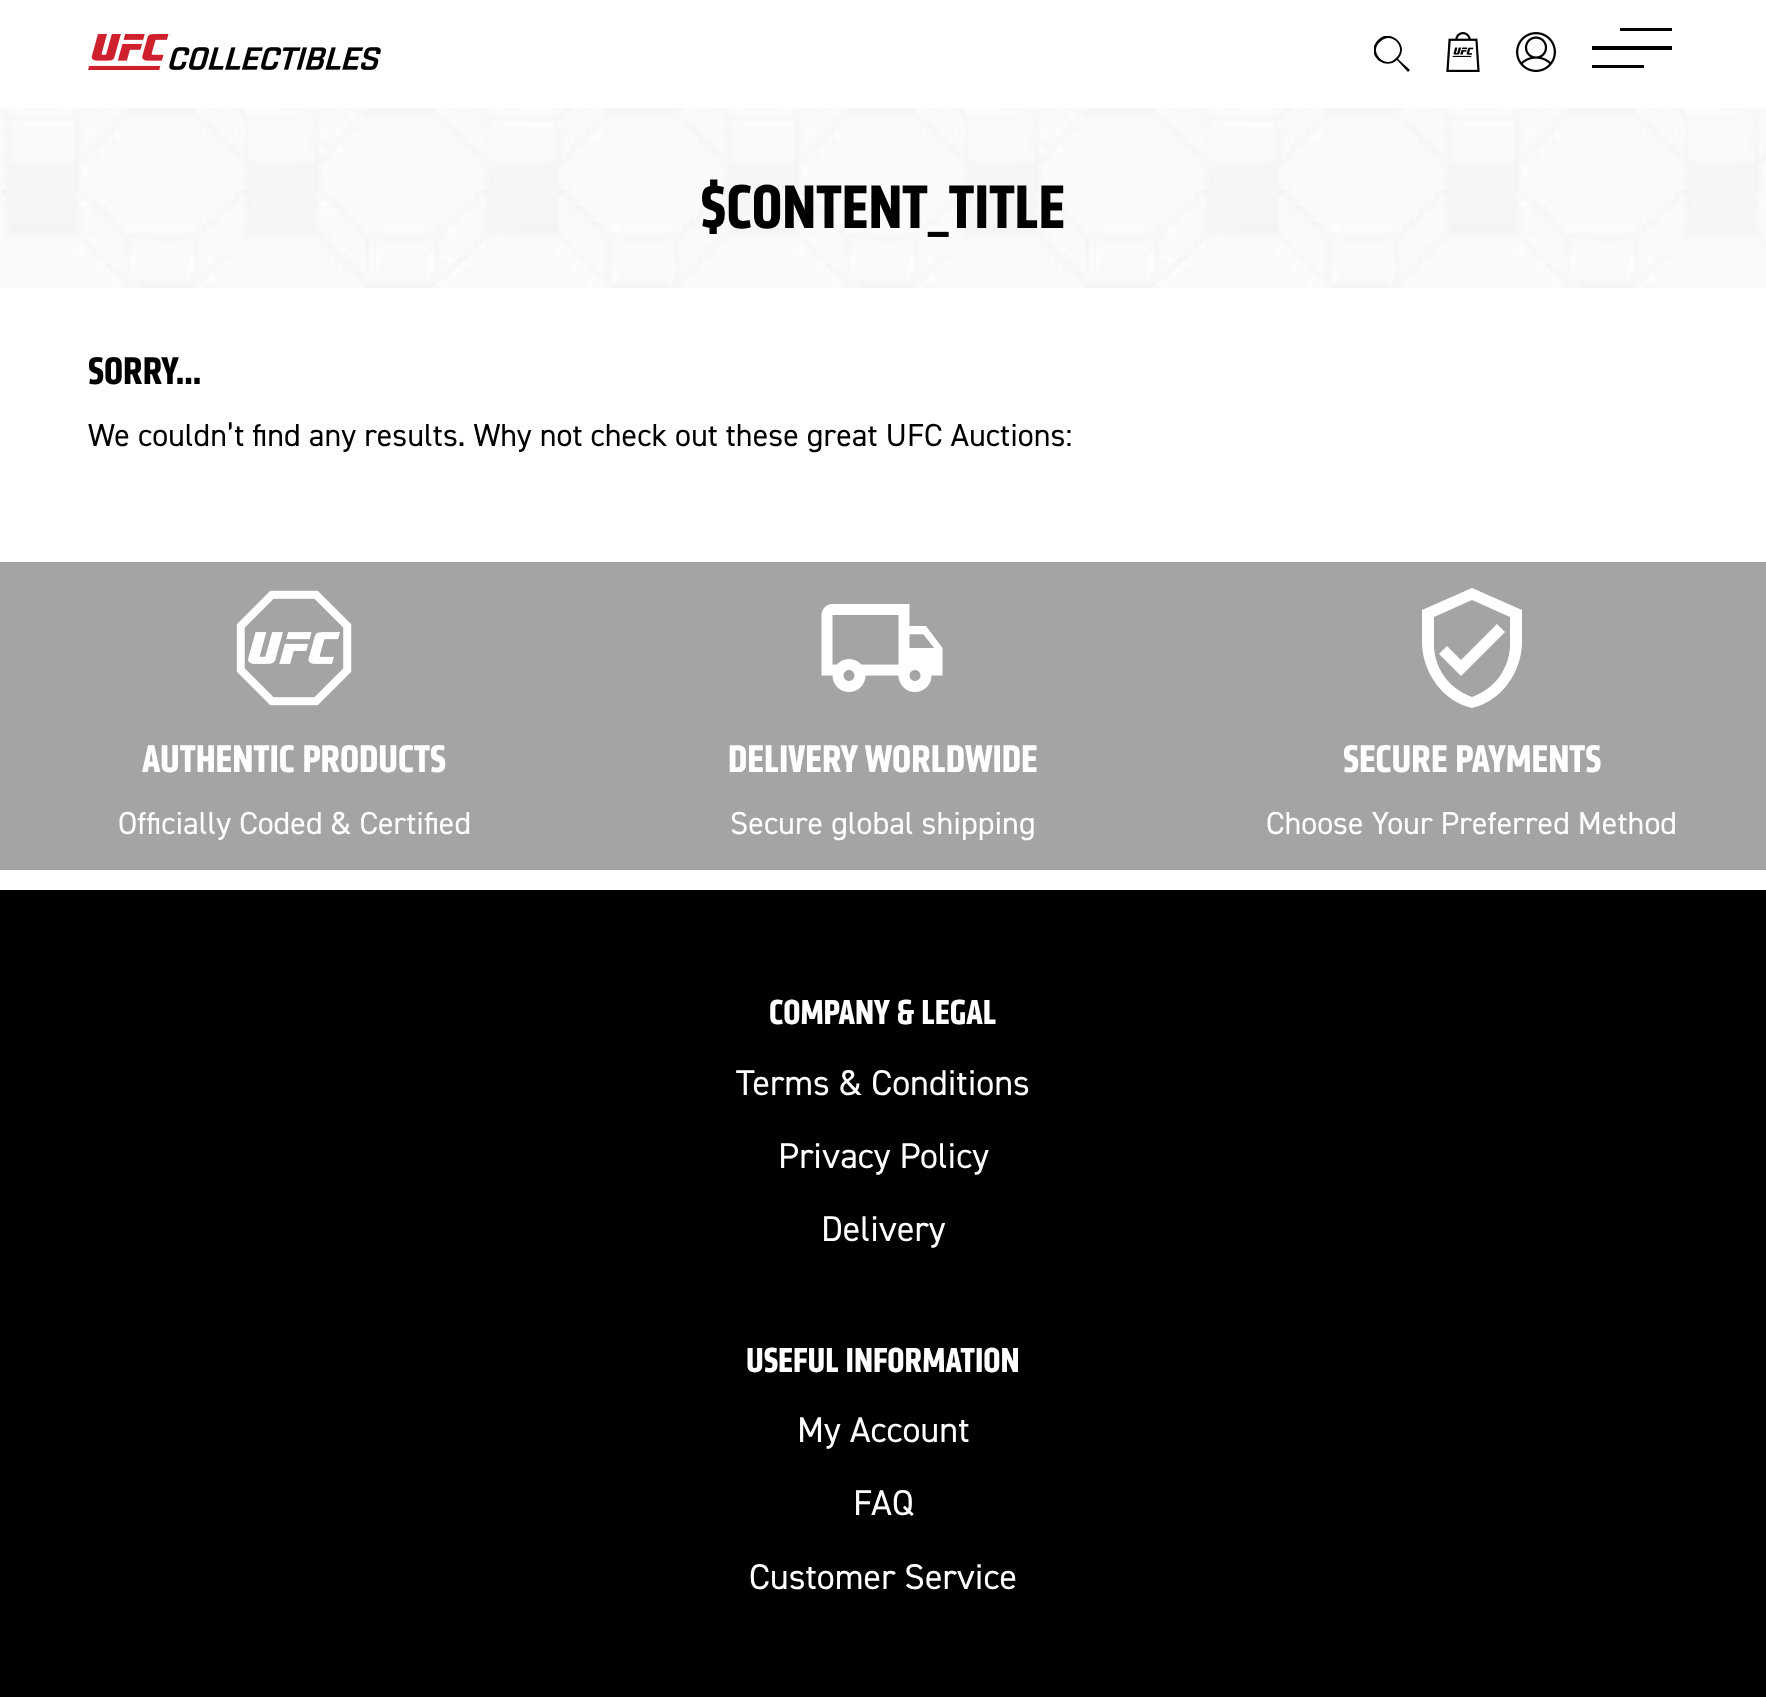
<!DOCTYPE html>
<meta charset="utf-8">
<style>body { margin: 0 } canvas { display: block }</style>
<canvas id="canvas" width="1766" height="1697"></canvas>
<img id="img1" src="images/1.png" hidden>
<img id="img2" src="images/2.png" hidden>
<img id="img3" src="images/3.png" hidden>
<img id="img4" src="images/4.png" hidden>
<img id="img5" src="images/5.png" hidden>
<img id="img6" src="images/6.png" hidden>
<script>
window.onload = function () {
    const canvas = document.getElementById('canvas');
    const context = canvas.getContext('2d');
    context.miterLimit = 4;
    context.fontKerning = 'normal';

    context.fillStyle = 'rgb(255, 255, 255)';
    context.fillRect(0, 0, 1766, 1697);
    context.drawImage(document.getElementById('img1'), 88, 34, 293, 36);
    context.fillStyle = 'rgb(0, 0, 0)';
    context.beginPath();
    context.moveTo(1410, 70);
    context.lineTo(1408, 72);
    context.lineTo(1397, 60);
    context.bezierCurveTo(1388, 68, 1377, 62, 1374, 54);
    context.lineTo(1374, 46);
    context.bezierCurveTo(1375, 44, 1376, 42, 1378, 40);
    context.bezierCurveTo(1380, 38, 1383, 36, 1385, 36);
    context.lineTo(1390, 36);
    context.bezierCurveTo(1399, 38, 1407, 49, 1398, 59);
    context.closePath();
    context.moveTo(1396, 58);
    context.bezierCurveTo(1408, 48, 1391, 30, 1380, 42);
    context.bezierCurveTo(1368, 52, 1386, 70, 1396, 58);
    context.closePath();
    context.fill('evenodd');
    context.drawImage(document.getElementById('img2'), 1446, 32, 34, 40);
    context.drawImage(document.getElementById('img3'), 1516, 32, 40, 40);
    context.fillRect(1620, 28, 52, 3);
    context.fillRect(1592, 46, 80, 4);
    context.fillRect(1592, 65, 52, 3);
    context.fillStyle = 'rgb(250, 250, 250)';
    context.fillRect(0, 108, 1766, 180);
    context.drawImage(document.getElementById('img4'), 2, 108, 1763, 180);
    context.fillStyle = 'rgb(166, 164, 163)';
    context.fillRect(0, 562, 1766, 308);
    context.drawImage(document.getElementById('img5'), 236, 590, 116, 116);
    context.drawImage(document.getElementById('img6'), 821, 604, 122, 88);
    context.fillStyle = 'rgb(255, 255, 255)';
    context.beginPath();
    context.moveTo(1472, 588);
    context.lineTo(1422, 610);
    context.lineTo(1422, 642);
    context.bezierCurveTo(1422, 673, 1444, 702, 1472, 708);
    context.bezierCurveTo(1500, 702, 1522, 673, 1522, 642);
    context.lineTo(1522, 610);
    context.closePath();
    context.moveTo(1510, 642);
    context.bezierCurveTo(1511, 667, 1495, 689, 1472, 697);
    context.bezierCurveTo(1449, 689, 1433, 667, 1434, 642);
    context.lineTo(1434, 617);
    context.lineTo(1472, 600);
    context.lineTo(1510, 617);
    context.closePath();
    context.moveTo(1447, 646);
    context.lineTo(1439, 654);
    context.lineTo(1461, 676);
    context.lineTo(1505, 632);
    context.lineTo(1497, 624);
    context.lineTo(1461, 660);
    context.closePath();
    context.fill();
    context.fillStyle = 'rgb(0, 0, 0)';
    context.fillRect(0, 890, 1766, 807);
    context.font = 'bold 64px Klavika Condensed';
    context.fillText('$CONTENT_TITLE', 700, 228);
    context.font = 'bold 40px Klavika Condensed';
    context.fillText('SORRY...', 88, 384);
    context.font = '32px "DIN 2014"';
    context.fillText('We couldn’t find any results. Why not check out these great UFC Auctions:', 88, 446);
    context.font = 'bold 40px Klavika Condensed';
    context.fillStyle = 'rgb(255, 255, 255)';
    context.fillText('AUTHENTIC PRODUCTS', 142, 772);
    context.font = '32px "DIN 2014"';
    context.fillText('Officially Coded & Certified', 118, 834);
    context.font = 'bold 40px Klavika Condensed';
    context.fillText('DELIVERY WORLDWIDE', 728, 772);
    context.font = '32px "DIN 2014"';
    context.fillText('Secure global shipping', 730, 834);
    context.font = 'bold 40px Klavika Condensed';
    context.fillText('SECURE PAYMENTS', 1343, 772);
    context.font = '32px "DIN 2014"';
    context.fillText('Choose Your Preferred Method', 1266, 834);
    context.font = 'bold 36px Klavika Condensed';
    context.fillText('COMPANY & LEGAL', 769, 1024);
    context.font = '36px "DIN 2014"';
    context.fillText('Terms & Conditions', 736, 1095);
    context.fillText('Privacy Policy', 778, 1168);
    context.fillText('Delivery', 821, 1241);
    context.font = 'bold 36px Klavika Condensed';
    context.fillText('USEFUL INFORMATION', 746, 1372);
    context.font = '36px "DIN 2014"';
    context.fillText('My Account', 797, 1442);
    context.fillText('FAQ', 853, 1515);
    context.fillText('Customer Service', 749, 1589);
};
</script>
